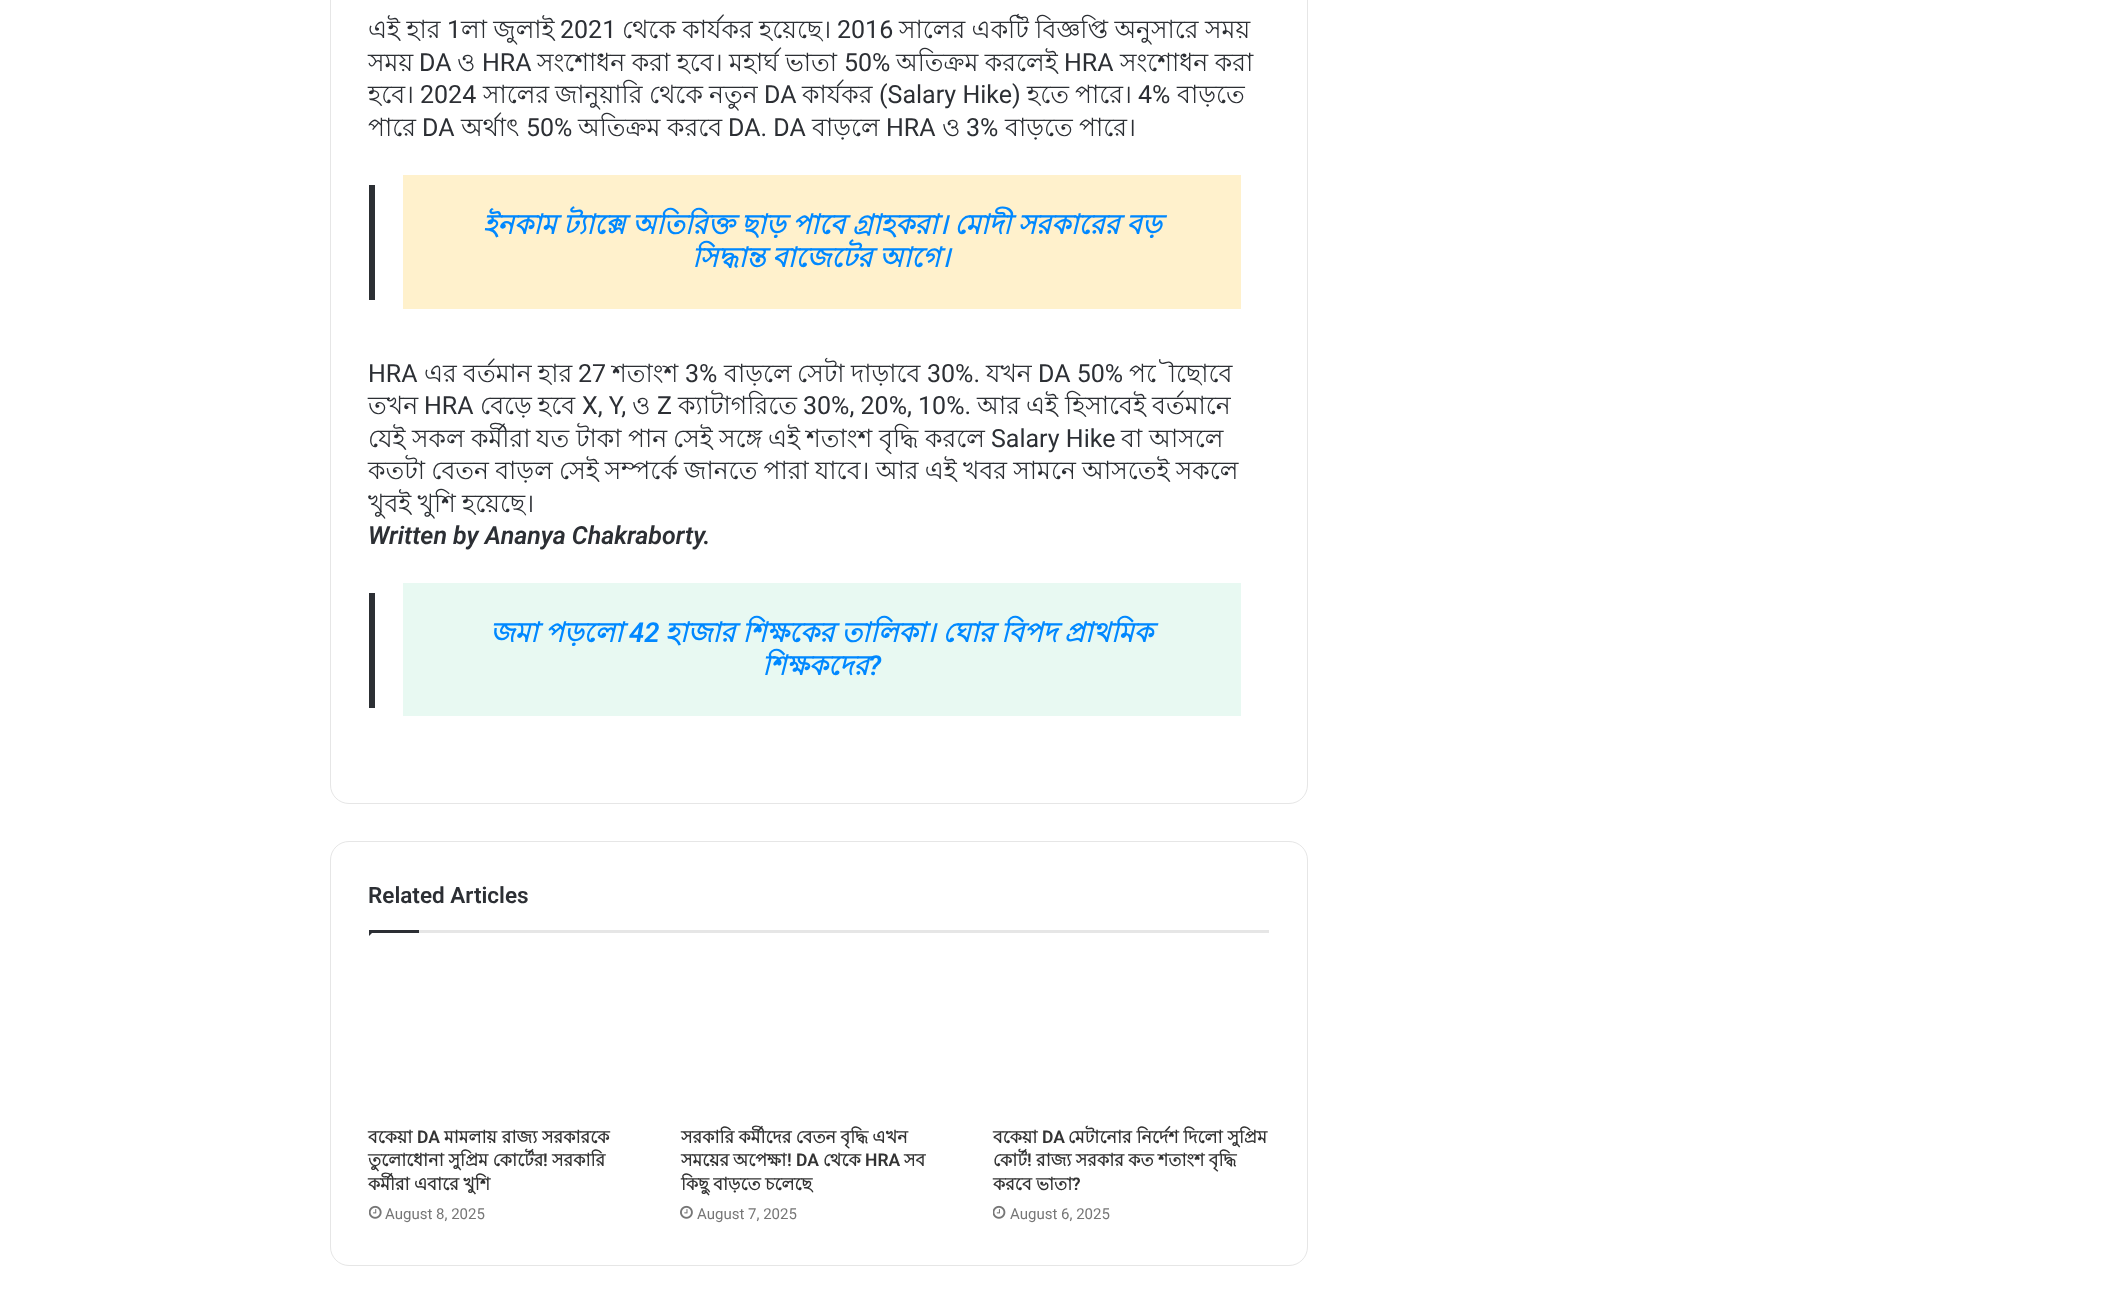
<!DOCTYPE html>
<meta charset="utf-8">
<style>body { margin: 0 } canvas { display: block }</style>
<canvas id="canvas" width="2121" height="1291"></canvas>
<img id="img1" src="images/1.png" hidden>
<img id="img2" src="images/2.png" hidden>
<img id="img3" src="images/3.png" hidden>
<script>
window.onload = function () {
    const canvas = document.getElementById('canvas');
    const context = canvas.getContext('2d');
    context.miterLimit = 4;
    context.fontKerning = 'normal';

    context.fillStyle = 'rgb(255, 255, 255)';
    context.fillRect(0, 0, 2121, 1291);
    context.beginPath();
    context.roundRect(330.5, -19.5, 977, 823, 18.5);
    context.strokeStyle = 'rgb(230, 230, 230)';
    context.stroke();
    context.fillStyle = 'rgb(44, 47, 52)';
    context.fillRect(369, 185, 6, 115);
    context.fillStyle = 'rgb(255, 241, 204)';
    context.fillRect(403, 175, 838, 134);
    context.fillStyle = 'rgb(44, 47, 52)';
    context.fillRect(369, 593, 6, 115);
    context.fillStyle = 'rgb(232, 249, 242)';
    context.fillRect(403, 583, 838, 133);
    context.beginPath();
    context.roundRect(330.5, 841.5, 977, 424, 18.5);
    context.stroke();
    context.fillStyle = 'rgb(230, 230, 230)';
    context.fillRect(419, 930, 850, 3);
    context.fillStyle = 'rgb(44, 47, 52)';
    context.beginPath();
    context.moveTo(369, 930);
    context.lineTo(375, 930);
    context.lineTo(369, 936);
    context.closePath();
    context.fill();
    context.fillRect(369, 930, 50, 3);
    context.drawImage(document.getElementById('img1'), 369, 1205, 13, 14);
    context.drawImage(document.getElementById('img2'), 680, 1205, 13, 14);
    context.drawImage(document.getElementById('img3'), 993, 1205, 13, 14);
    context.wordSpacing = '-0.5px';
    context.font = '25px Lohit Bengali';
    context.fillText('এই হার', 368, 38);
    context.wordSpacing = '0px';
    context.font = '25px Roboto';
    context.fillText('1', 447, 38);
    context.wordSpacing = '-0.5px';
    context.font = '25px Lohit Bengali';
    context.fillText('লা জুলাই', 461, 38);
    context.wordSpacing = '0px';
    context.font = '25px Roboto';
    context.fillText('2021', 560, 38);
    context.wordSpacing = '-0.5px';
    context.font = '25px Lohit Bengali';
    context.fillText('থেকে কার্যকর হয়েছে।', 622, 38);
    context.wordSpacing = '0px';
    context.font = '25px Roboto';
    context.fillText('2016', 837, 38);
    context.wordSpacing = '-0.5px';
    context.font = '25px Lohit Bengali';
    context.fillText('সালের একটি বিজ্ঞপ্তি অনুসারে সময়', 899, 38);
    context.wordSpacing = '0px';
    context.fillText('সময়', 368, 71);
    context.font = '25px Roboto';
    context.fillText('DA', 419, 71);
    context.font = '25px Lohit Bengali';
    context.fillText('ও', 457, 71);
    context.font = '25px Roboto';
    context.fillText('HRA', 482, 71);
    context.wordSpacing = '-0.5px';
    context.font = '25px Lohit Bengali';
    context.fillText('সংশোধন করা হবে। মহার্ঘ ভাতা', 537, 71);
    context.wordSpacing = '0px';
    context.font = '25px Roboto';
    context.fillText('50%', 844, 71);
    context.wordSpacing = '-0.5px';
    context.font = '25px Lohit Bengali';
    context.fillText('অতিক্রম করলেই', 896, 71);
    context.wordSpacing = '0px';
    context.font = '25px Roboto';
    context.fillText('HRA', 1064, 71);
    context.wordSpacing = '-0.5px';
    context.font = '25px Lohit Bengali';
    context.fillText('সংশোধন করা', 1120, 71);
    context.wordSpacing = '0px';
    context.fillText('হবে।', 368, 103);
    context.font = '25px Roboto';
    context.fillText('2024', 420, 103);
    context.font = '25px Lohit Bengali';
    context.fillText('সালের', 483, 103);
    context.fillText('জানুয়ারি', 555, 103);
    context.fillText('থেকে', 649, 103);
    context.fillText('নতুন', 709, 103);
    context.font = '25px Roboto';
    context.fillText('DA', 764, 103);
    context.font = '25px Lohit Bengali';
    context.fillText('কার্যকর', 802, 103);
    context.font = '25px Roboto';
    context.fillText('(Salary Hike)', 879, 103);
    context.font = '25px Lohit Bengali';
    context.fillText('হতে', 1027, 103);
    context.fillText('পারে।', 1075, 103);
    context.font = '25px Roboto';
    context.fillText('4%', 1138, 103);
    context.font = '25px Lohit Bengali';
    context.fillText('বাড়তে', 1177, 103);
    context.fillText('পারে', 368, 136);
    context.font = '25px Roboto';
    context.fillText('DA', 422, 136);
    context.font = '25px Lohit Bengali';
    context.fillText('অর্থাৎ', 461, 136);
    context.font = '25px Roboto';
    context.fillText('50%', 526, 136);
    context.font = '25px Lohit Bengali';
    context.fillText('অতিক্রম', 578, 136);
    context.fillText('করবে', 667, 136);
    context.font = '25px Roboto';
    context.fillText('DA. DA', 728, 136);
    context.font = '25px Lohit Bengali';
    context.fillText('বাড়লে', 812, 136);
    context.font = '25px Roboto';
    context.fillText('HRA', 886, 136);
    context.font = '25px Lohit Bengali';
    context.fillText('ও', 942, 136);
    context.font = '25px Roboto';
    context.fillText('3%', 966, 136);
    context.font = '25px Lohit Bengali';
    context.fillText('বাড়তে', 1005, 136);
    context.fillText('পারে।', 1079, 136);
    context.wordSpacing = '-0.75px';
    context.font = 'italic bold 27.5px Lohit Bengali';
    context.fillStyle = 'rgb(0, 136, 255)';
    context.fillText('ইনকাম ট্যাক্সে অতিরিক্ত ছাড় পাবে গ্রাহকরা। মোদী সরকারের বড়', 483, 234);
    context.fillText('সিদ্ধান্ত বাজেটের আগে।', 692, 267);
    context.wordSpacing = '0px';
    context.font = '25px Roboto';
    context.fillStyle = 'rgb(44, 47, 52)';
    context.fillText('HRA', 368, 382);
    context.font = '25px Lohit Bengali';
    context.fillText('এর', 424, 382);
    context.fillText('বর্তমান', 463, 382);
    context.fillText('হার', 538, 382);
    context.font = '25px Roboto';
    context.fillText('27', 578, 382);
    context.font = '25px Lohit Bengali';
    context.fillText('শতাংশ', 612, 382);
    context.font = '25px Roboto';
    context.fillText('3%', 685, 382);
    context.font = '25px Lohit Bengali';
    context.fillText('বাড়লে', 724, 382);
    context.fillText('সেটা', 797, 382);
    context.fillText('দাড়াবে', 851, 382);
    context.font = '25px Roboto';
    context.fillText('30%.', 927, 382);
    context.font = '25px Lohit Bengali';
    context.fillText('যখন', 986, 382);
    context.font = '25px Roboto';
    context.fillText('DA 50%', 1038, 382);
    context.font = '25px Lohit Bengali';
    context.fillText('পৌছোবে', 1129, 382);
    context.fillText('তখন', 368, 414);
    context.font = '25px Roboto';
    context.fillText('HRA', 424, 414);
    context.font = '25px Lohit Bengali';
    context.fillText('বেড়ে', 480, 414);
    context.fillText('হবে', 538, 414);
    context.font = '25px Roboto';
    context.fillText('X, Y,', 582, 414);
    context.font = '25px Lohit Bengali';
    context.fillText('ও', 632, 414);
    context.font = '25px Roboto';
    context.fillText('Z', 657, 414);
    context.font = '25px Lohit Bengali';
    context.fillText('ক্যাটাগরিতে', 678, 414);
    context.font = '25px Roboto';
    context.fillText('30%, 20%, 10%.', 803, 414);
    context.font = '25px Lohit Bengali';
    context.fillText('আর', 977, 414);
    context.fillText('এই', 1026, 414);
    context.fillText('হিসাবেই', 1065, 414);
    context.fillText('বর্তমানে', 1152, 414);
    context.fillText('যেই', 368, 447);
    context.fillText('সকল', 412, 447);
    context.fillText('কর্মীরা', 471, 447);
    context.fillText('যত', 536, 447);
    context.fillText('টাকা', 576, 447);
    context.fillText('পান', 628, 447);
    context.fillText('সেই', 673, 447);
    context.fillText('সঙ্গে', 719, 447);
    context.fillText('এই', 768, 447);
    context.fillText('শতাংশ', 806, 447);
    context.fillText('বৃদ্ধি', 879, 447);
    context.fillText('করলে', 925, 447);
    context.font = '25px Roboto';
    context.fillText('Salary Hike', 991, 447);
    context.font = '25px Lohit Bengali';
    context.fillText('বা', 1121, 447);
    context.fillText('আসলে', 1149, 447);
    context.wordSpacing = '-0.75px';
    context.fillText('কতটা বেতন বাড়ল সেই সম্পর্কে জানতে পারা যাবে। আর এই খবর সামনে আসতেই সকলে', 368, 479);
    context.fillText('খুবই খুশি হয়েছে।', 368, 512);
    context.wordSpacing = '0px';
    context.font = 'italic 600 25px Roboto';
    context.fillText('Written by Ananya Chakraborty.', 368, 544);
    context.wordSpacing = '-0.5px';
    context.font = 'italic bold 27.5px Lohit Bengali';
    context.fillStyle = 'rgb(0, 136, 255)';
    context.fillText('জমা পড়লো', 490, 642);
    context.wordSpacing = '0px';
    context.font = 'italic 600 27.5px Roboto';
    context.fillText('42', 629, 642);
    context.wordSpacing = '-0.5px';
    context.font = 'italic bold 27.5px Lohit Bengali';
    context.fillText('হাজার শিক্ষকের তালিকা। ঘোর বিপদ প্রাথমিক', 665, 642);
    context.wordSpacing = '0px';
    context.fillText('শিক্ষকদের', 762, 675);
    context.font = 'italic 600 27.5px Roboto';
    context.fillText('?', 868, 675);
    context.font = '600 22.5px Roboto';
    context.fillStyle = 'rgb(44, 47, 52)';
    context.fillText('Related Articles', 368, 903);
    context.font = 'bold 17.5px Lohit Bengali';
    context.fillStyle = 'rgb(51, 51, 51)';
    context.fillText('বকেয়া', 368, 1143);
    context.font = '600 17.5px Roboto';
    context.fillText('DA', 417, 1143);
    context.font = 'bold 17.5px Lohit Bengali';
    context.fillText('মামলায় রাজ্য সরকারকে', 444, 1143);
    context.fillText('তুলোধোনা সুপ্রিম কোর্টের', 368, 1166);
    context.font = '600 17.5px Roboto';
    context.fillText('!', 543, 1166);
    context.font = 'bold 17.5px Lohit Bengali';
    context.fillText('সরকারি', 552, 1166);
    context.wordSpacing = '-0.5px';
    context.fillText('কর্মীরা এবারে খুশি', 368, 1190);
    context.wordSpacing = '0px';
    context.font = '15px Roboto';
    context.fillStyle = 'rgb(118, 118, 118)';
    context.fillText('August 8, 2025', 385, 1219);
    context.wordSpacing = '-0.5px';
    context.font = 'bold 17.5px Lohit Bengali';
    context.fillStyle = 'rgb(51, 51, 51)';
    context.fillText('সরকারি কর্মীদের বেতন বৃদ্ধি এখন', 681, 1143);
    context.wordSpacing = '0px';
    context.fillText('সময়ের', 681, 1166);
    context.fillText('অপেক্ষা', 733, 1166);
    context.font = '600 17.5px Roboto';
    context.fillText('! DA', 787, 1166);
    context.font = 'bold 17.5px Lohit Bengali';
    context.fillText('থেকে', 823, 1166);
    context.font = '600 17.5px Roboto';
    context.fillText('HRA', 865, 1166);
    context.font = 'bold 17.5px Lohit Bengali';
    context.fillText('সব', 904, 1166);
    context.wordSpacing = '-0.5px';
    context.fillText('কিছু বাড়তে চলেছে', 681, 1190);
    context.wordSpacing = '0px';
    context.font = '15px Roboto';
    context.fillStyle = 'rgb(118, 118, 118)';
    context.fillText('August 7, 2025', 697, 1219);
    context.font = 'bold 17.5px Lohit Bengali';
    context.fillStyle = 'rgb(51, 51, 51)';
    context.fillText('বকেয়া', 993, 1143);
    context.font = '600 17.5px Roboto';
    context.fillText('DA', 1042, 1143);
    context.font = 'bold 17.5px Lohit Bengali';
    context.fillText('মেটানোর নির্দেশ দিলো সুপ্রিম', 1068, 1143);
    context.fillText('কোর্ট', 993, 1166);
    context.font = '600 17.5px Roboto';
    context.fillText('!', 1027, 1166);
    context.wordSpacing = '-0.5px';
    context.font = 'bold 17.5px Lohit Bengali';
    context.fillText('রাজ্য সরকার কত শতাংশ বৃদ্ধি', 1036, 1166);
    context.fillText('করবে ভাতা', 993, 1190);
    context.wordSpacing = '0px';
    context.font = '600 17.5px Roboto';
    context.fillText('?', 1072, 1190);
    context.font = '15px Roboto';
    context.fillStyle = 'rgb(118, 118, 118)';
    context.fillText('August 6, 2025', 1010, 1219);
};
</script>
